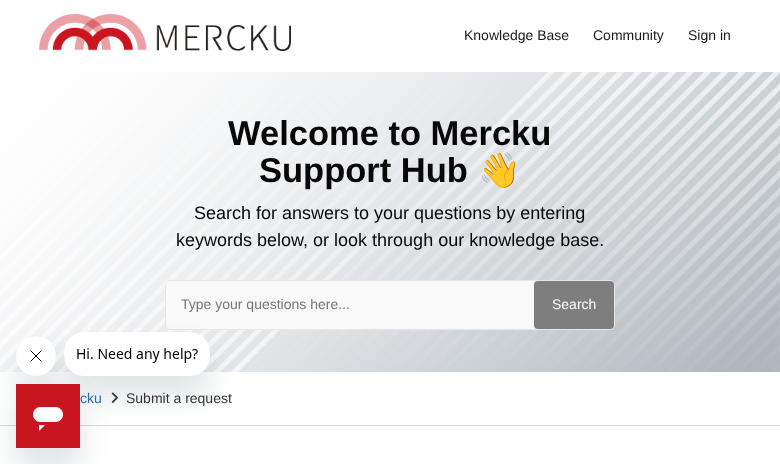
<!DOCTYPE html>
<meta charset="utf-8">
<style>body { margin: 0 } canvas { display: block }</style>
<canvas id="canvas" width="780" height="464"></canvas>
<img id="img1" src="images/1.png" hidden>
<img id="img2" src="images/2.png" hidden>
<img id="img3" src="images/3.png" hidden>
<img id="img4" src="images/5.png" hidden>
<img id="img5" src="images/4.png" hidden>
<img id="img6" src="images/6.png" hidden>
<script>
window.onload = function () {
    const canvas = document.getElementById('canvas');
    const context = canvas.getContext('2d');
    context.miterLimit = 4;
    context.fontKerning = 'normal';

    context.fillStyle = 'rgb(255, 255, 255)';
    context.fillRect(0, 0, 780, 464);
    context.drawImage(document.getElementById('img1'), 39, 14, 252, 37);
    context.drawImage(document.getElementById('img2'), 0, 72, 780, 300);
    context.fillStyle = 'rgb(249, 249, 249)';
    context.beginPath();
    context.roundRect(165.5, 280.5, 449, 49, 4.5);
    context.fill();
    context.strokeStyle = 'rgb(230, 230, 230)';
    context.stroke();
    context.fillStyle = 'rgb(126, 126, 126)';
    context.beginPath();
    context.roundRect(534, 281, 80, 48, 4);
    context.fill();
    context.fillStyle = 'rgb(221, 221, 221)';
    context.fillRect(0, 425, 780, 1);
    context.drawImage(document.getElementById('img3'), 111, 392, 7, 11);
    context.save();
    context.beginPath();
    context.moveTo(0, 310);
    context.lineTo(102, 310);
    context.lineTo(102, 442);
    context.lineTo(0, 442);
    context.closePath();
    context.moveTo(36, 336);
    context.bezierCurveTo(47, 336, 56, 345, 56, 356);
    context.bezierCurveTo(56, 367, 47, 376, 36, 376);
    context.bezierCurveTo(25, 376, 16, 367, 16, 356);
    context.bezierCurveTo(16, 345, 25, 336, 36, 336);
    context.closePath();
    context.clip('evenodd');
    context.fillStyle = 'rgba(23, 73, 77, 0.15)';
    context.filter = 'blur(15px)';
    context.beginPath();
    context.roundRect(16, 356, 40, 40, 20);
    context.fill();
    context.filter = 'none';
    context.restore();
    context.drawImage(document.getElementById('img4'), 16, 336, 40, 36);
    context.fillStyle = 'rgba(23, 73, 77, 0.15)';
    context.filter = 'blur(15px)';
    context.beginPath();
    context.roundRect(64, 352, 146, 44, 20);
    context.fill();
    context.filter = 'none';
    context.drawImage(document.getElementById('img5'), 64, 332, 146, 44);
    context.filter = 'blur(15px)';
    context.beginPath();
    context.rect(16, 404, 64, 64);
    context.fill();
    context.filter = 'none';
    context.drawImage(document.getElementById('img6'), 16, 384, 64, 64);
    context.font = '14px Liberation Sans';
    context.fillStyle = 'rgb(24, 24, 24)';
    context.fillText('Knowledge Base', 464, 40);
    context.fillText('Community', 593, 40);
    context.fillText('Sign in', 688, 40);
    context.font = 'bold 34.5px Liberation Sans';
    context.fillStyle = 'rgb(8, 8, 8)';
    context.fillText('Welcome to Mercku', 228, 145);
    context.fillText('Support Hub', 259, 182);
    context.font = 'bold 34.5px Noto Color Emoji';
    context.fillText('👋', 478, 182);
    context.font = '18px Liberation Sans';
    context.fillText('Search for answers to your questions by entering', 194, 219);
    context.fillText('keywords below, or look through our knowledge base.', 176, 246);
    context.font = '14px Liberation Sans';
    context.fillStyle = 'rgb(117, 117, 117)';
    context.fillText('Type your questions here...', 181, 309);
    context.fillStyle = 'rgb(255, 255, 255)';
    context.fillText('Search', 552, 309);
    context.fillStyle = 'rgb(43, 107, 177)';
    context.fillText('cku', 80, 403);
    context.fillStyle = 'rgb(51, 51, 51)';
    context.fillText('Submit a request', 126, 403);
};
</script>
